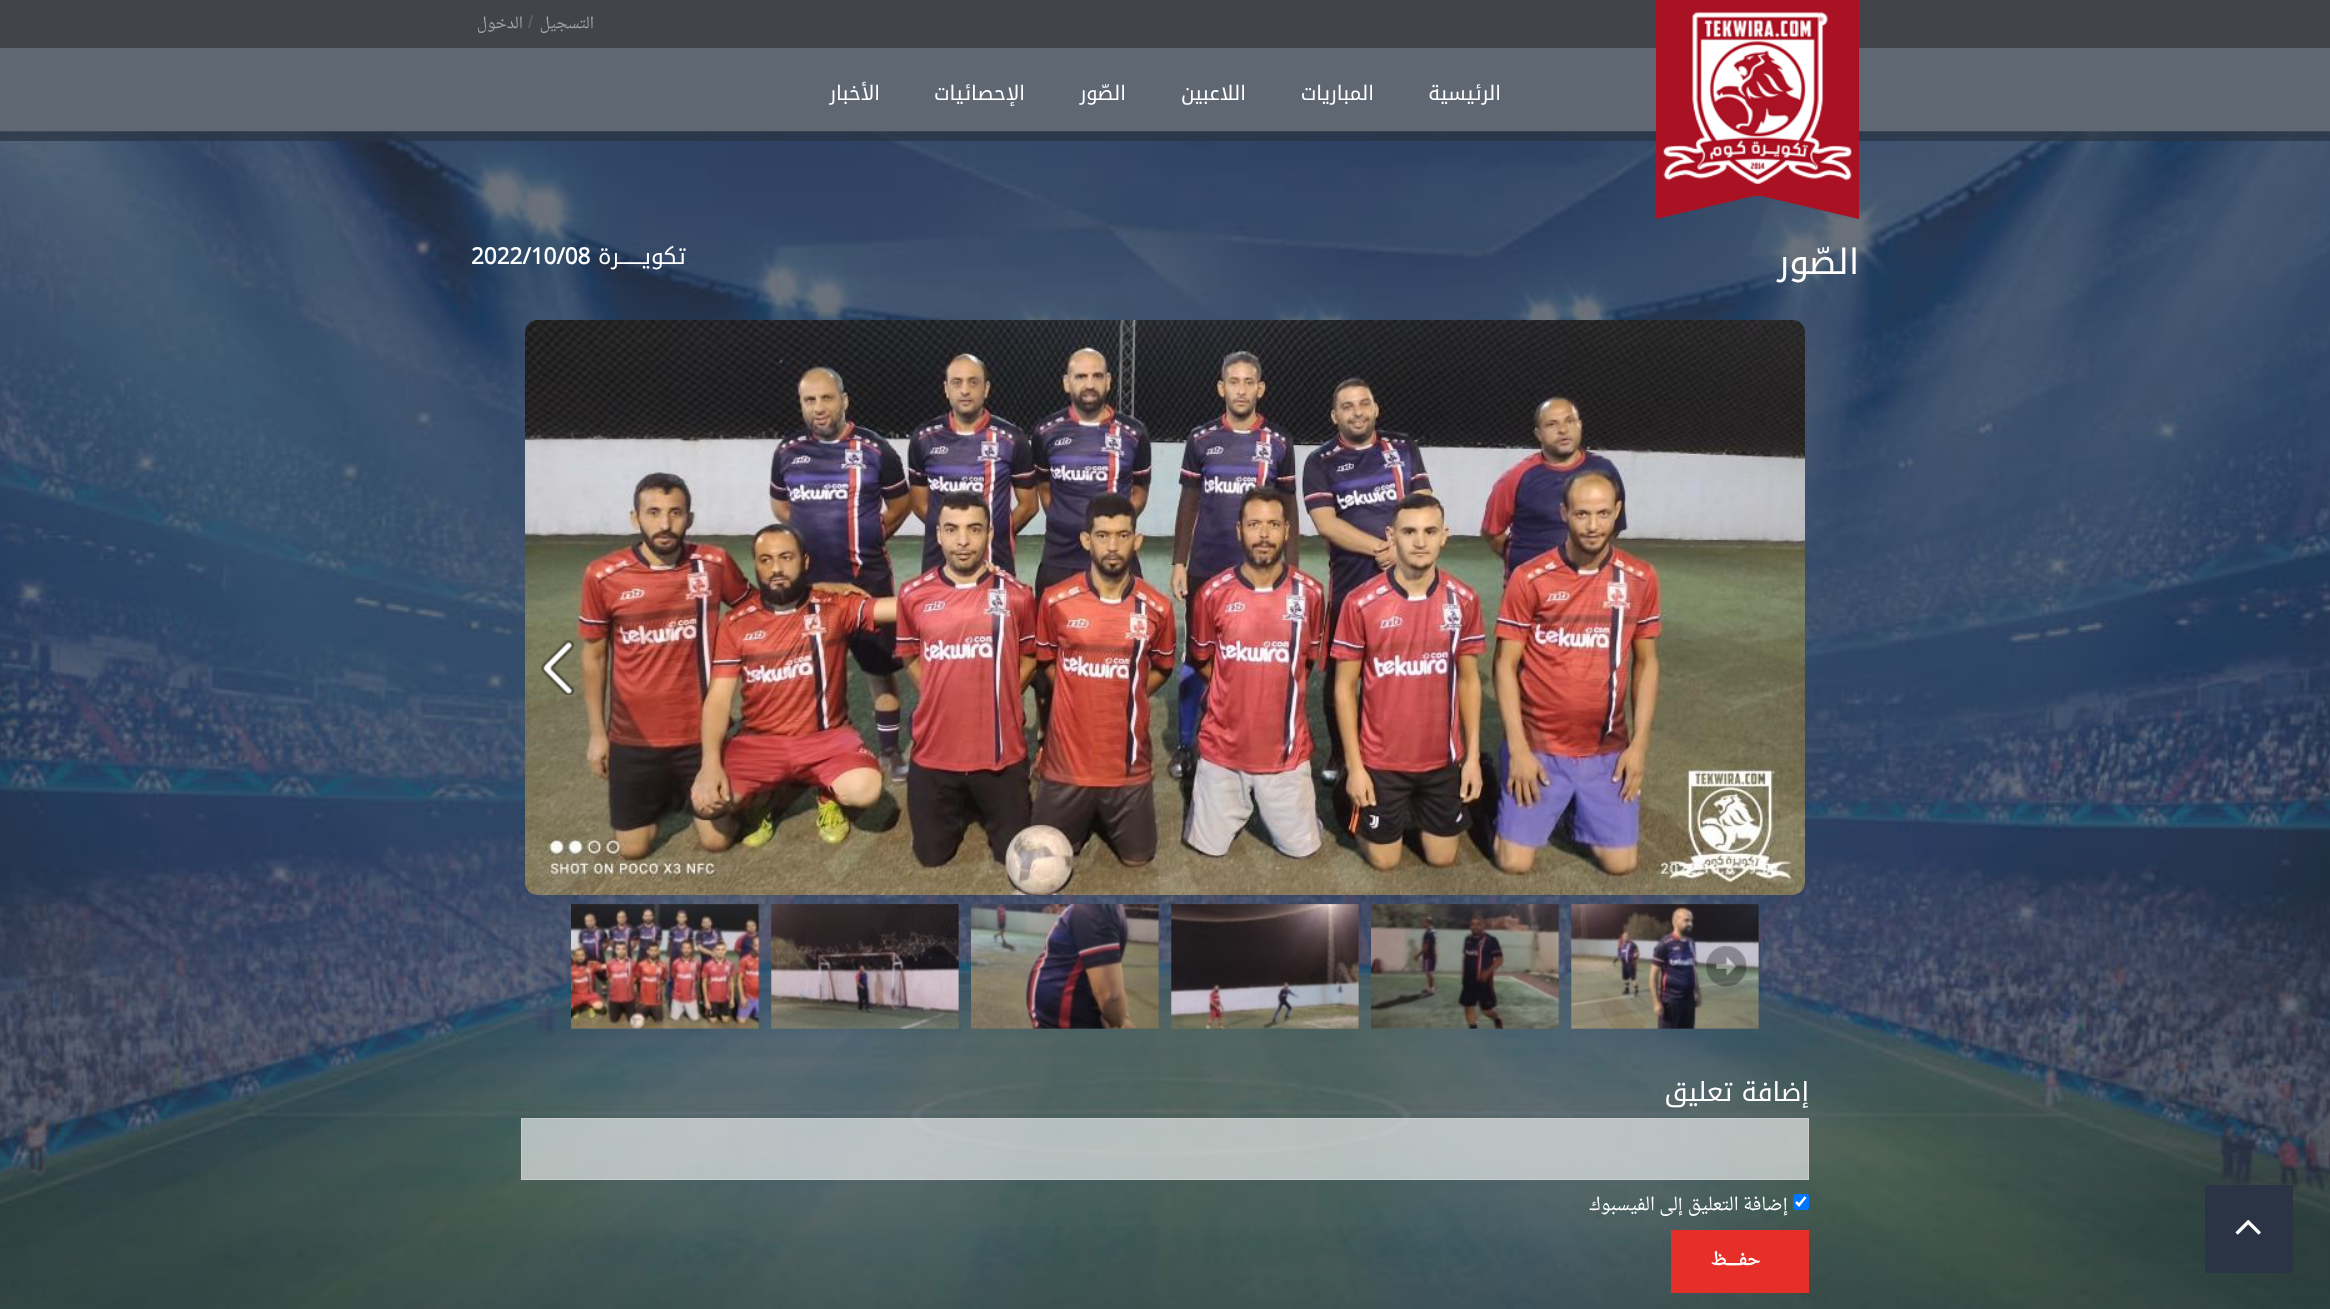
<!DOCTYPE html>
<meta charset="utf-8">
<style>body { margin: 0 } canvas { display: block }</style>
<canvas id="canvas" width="2330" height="1309"></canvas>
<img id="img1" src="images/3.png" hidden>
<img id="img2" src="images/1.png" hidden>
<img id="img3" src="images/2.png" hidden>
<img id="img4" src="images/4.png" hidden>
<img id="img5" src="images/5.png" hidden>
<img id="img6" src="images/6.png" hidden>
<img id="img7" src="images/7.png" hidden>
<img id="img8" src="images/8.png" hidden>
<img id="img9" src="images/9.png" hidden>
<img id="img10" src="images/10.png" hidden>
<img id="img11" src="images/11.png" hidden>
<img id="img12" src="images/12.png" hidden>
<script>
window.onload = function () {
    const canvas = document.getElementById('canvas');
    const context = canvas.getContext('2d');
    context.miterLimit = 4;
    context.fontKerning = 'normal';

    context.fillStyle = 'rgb(255, 255, 255)';
    context.fillRect(0, 0, 2330, 1309);
    context.fillStyle = 'rgb(65, 68, 73)';
    context.fillRect(0, 0, 2330, 48);
    context.drawImage(document.getElementById('img1'), 0, 131, 2330, 1178);
    context.fillStyle = 'rgba(42, 52, 68, 0.75)';
    context.fillRect(0, 48, 2330, 93);
    context.fillStyle = 'rgb(170, 17, 35)';
    context.fillRect(1656, 0, 203, 196);
    context.drawImage(document.getElementById('img2'), 1663, 12, 189, 172);
    context.beginPath();
    context.moveTo(1859, 196);
    context.lineTo(1859, 219);
    context.lineTo(1761, 196);
    context.closePath();
    context.fill();
    context.beginPath();
    context.moveTo(1656, 196);
    context.lineTo(1754, 196);
    context.lineTo(1656, 219);
    context.closePath();
    context.fill();
    context.fillStyle = 'rgb(42, 52, 68)';
    context.fillRect(2205, 1185, 88, 88);
    context.drawImage(document.getElementById('img3'), 2235, 1219, 26, 16);
    context.drawImage(document.getElementById('img4'), 525, 320, 1280, 575);
    context.drawImage(document.getElementById('img5'), 541, 640, 34, 55);
    context.drawImage(document.getElementById('img6'), 1571, 904, 188, 125);
    context.drawImage(document.getElementById('img7'), 1371, 904, 189, 125);
    context.drawImage(document.getElementById('img8'), 1171, 904, 188, 125);
    context.drawImage(document.getElementById('img9'), 971, 904, 189, 125);
    context.drawImage(document.getElementById('img10'), 771, 904, 188, 125);
    context.drawImage(document.getElementById('img11'), 571, 904, 189, 125);
    context.drawImage(document.getElementById('img12'), 1706, 946, 41, 41);
    context.fillStyle = 'rgba(255, 255, 255, 0.6)';
    context.fillRect(521, 1118, 1288, 62);
    context.strokeStyle = 'rgba(213, 213, 213, 0.6)';
    context.strokeRect(521.5, 1118.5, 1287, 61);
    context.fillStyle = 'rgb(0, 117, 255)';
    context.beginPath();
    context.roundRect(1793, 1194, 16, 16, 2.5);
    context.fill();
    context.beginPath();
    context.moveTo(1796, 1202);
    context.lineTo(1799, 1205);
    context.lineTo(1805.5, 1197);
    context.strokeStyle = 'rgb(255, 255, 255)';
    context.lineWidth = 2.6;
    context.stroke();
    context.fillStyle = 'rgb(231, 47, 41)';
    context.fillRect(1671, 1230, 138, 63);
    context.direction = 'rtl';
    context.font = '15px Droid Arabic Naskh';
    context.fillStyle = 'rgb(160, 162, 164)';
    context.fillText('التسجيل', 594, 28);
    context.direction = 'ltr';
    context.font = '17.5px Liberation Sans';
    context.fillStyle = 'rgb(102, 102, 102)';
    context.fillText('/', 528, 28);
    context.direction = 'rtl';
    context.font = '15px Droid Arabic Naskh';
    context.fillStyle = 'rgb(160, 162, 164)';
    context.fillText('الدخول', 523, 28);
    context.font = '20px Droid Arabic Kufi';
    context.fillStyle = 'rgb(255, 255, 255)';
    context.fillText('الرئيسية', 1501, 100);
    context.fillText('المباريات', 1374, 100);
    context.fillText('اللاعبين', 1246, 100);
    context.fillText('الصّور', 1126, 100);
    context.fillText('الإحصائيات', 1025, 100);
    context.fillText('الأخبار', 880, 100);
    context.font = '35px Droid Arabic Kufi';
    context.fillText('الصّور', 1859, 274);
    context.font = '22.5px Droid Arabic Kufi';
    context.fillText('تكويــــــرة', 686, 264);
    context.direction = 'ltr';
    context.font = 'bold 22.5px Open Sans';
    context.fillText('2022/10/08', 471, 264);
    context.direction = 'rtl';
    context.font = '26.25px Droid Arabic Kufi';
    context.fillText('إضافة تعليق', 1809, 1101);
    context.font = '17.5px Droid Arabic Naskh';
    context.fillText('إضافة التعليق إلى الفيسبوك', 1788, 1210);
    context.font = 'bold 17.5px Droid Arabic Naskh';
    context.fillText('حفــــــظ', 1760, 1265);
};
</script>
